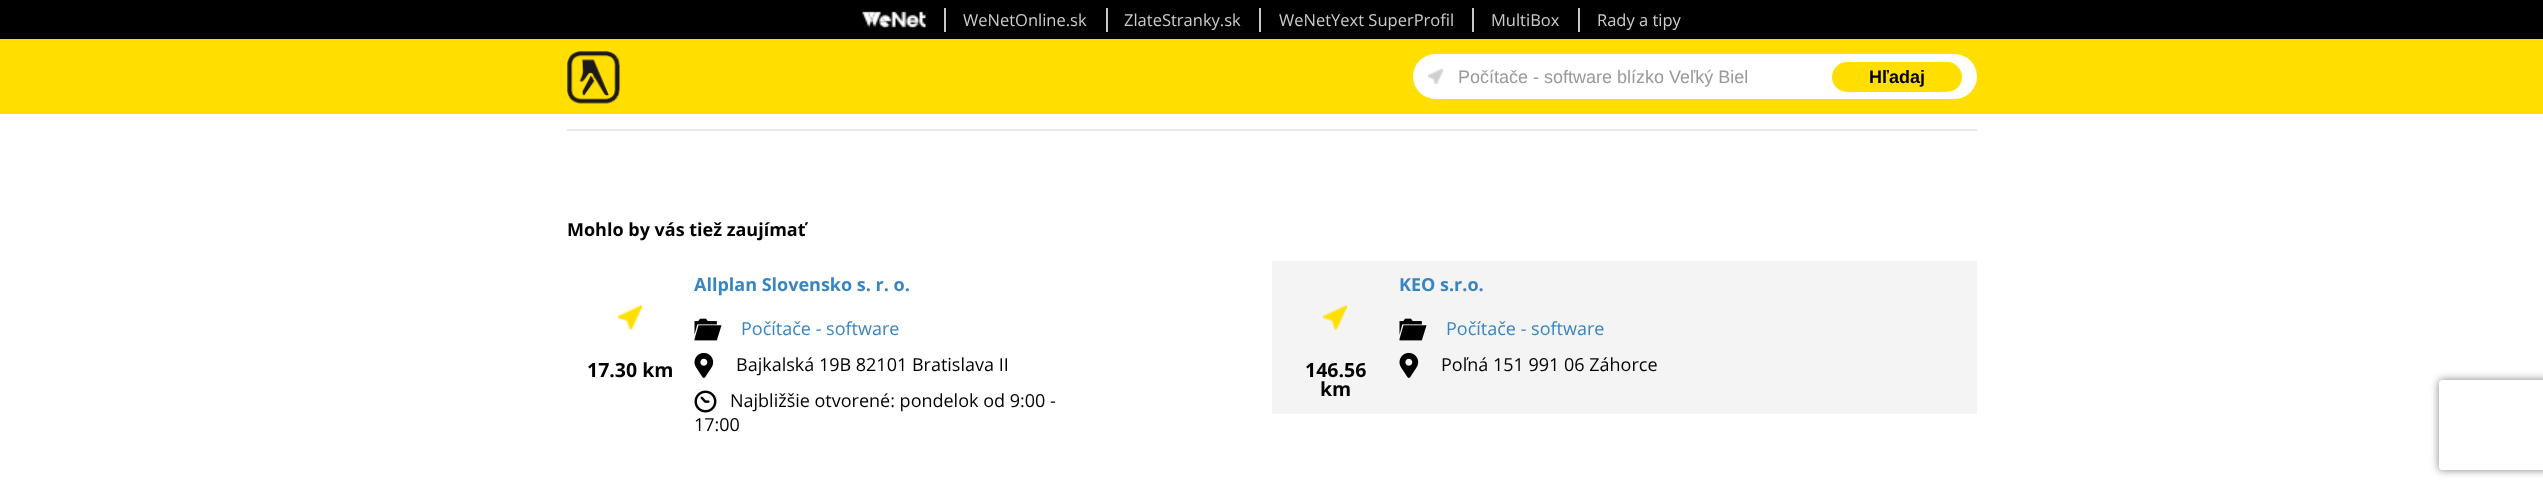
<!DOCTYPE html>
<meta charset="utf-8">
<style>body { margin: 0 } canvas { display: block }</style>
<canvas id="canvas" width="2543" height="490"></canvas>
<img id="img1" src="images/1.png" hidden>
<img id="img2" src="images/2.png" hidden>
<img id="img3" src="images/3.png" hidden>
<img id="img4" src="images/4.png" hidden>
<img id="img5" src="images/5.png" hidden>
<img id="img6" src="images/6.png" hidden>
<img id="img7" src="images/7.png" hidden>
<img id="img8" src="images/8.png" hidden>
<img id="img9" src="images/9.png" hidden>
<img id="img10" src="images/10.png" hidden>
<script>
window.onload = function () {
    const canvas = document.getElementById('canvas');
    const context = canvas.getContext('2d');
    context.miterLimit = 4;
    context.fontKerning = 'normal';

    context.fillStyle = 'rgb(255, 255, 255)';
    context.fillRect(0, 0, 2543, 490);
    context.fillStyle = 'rgb(255, 222, 0)';
    context.fillRect(0, 39, 2543, 75);
    context.fillStyle = 'rgb(0, 0, 0)';
    context.fillRect(0, 0, 2543, 39);
    context.drawImage(document.getElementById('img1'), 862, 11, 64, 17);
    context.fillStyle = 'rgb(200, 200, 200)';
    context.fillRect(944, 8, 2, 24);
    context.fillRect(1106, 8, 2, 24);
    context.fillRect(1259, 8, 2, 24);
    context.fillRect(1472, 8, 2, 24);
    context.fillRect(1578, 8, 2, 24);
    context.drawImage(document.getElementById('img2'), 567, 51, 53, 53);
    context.fillStyle = 'rgb(255, 255, 255)';
    context.beginPath();
    context.roundRect(1413, 54, 564, 45, 22.5);
    context.fill();
    context.drawImage(document.getElementById('img3'), 1428, 69, 15, 15);
    context.fillStyle = 'rgb(255, 222, 0)';
    context.beginPath();
    context.roundRect(1832, 62, 130, 30, 15);
    context.fill();
    context.fillStyle = 'rgb(232, 232, 232)';
    context.fillRect(567, 129, 1410, 2);
    context.drawImage(document.getElementById('img4'), 618, 305, 24, 25);
    context.drawImage(document.getElementById('img5'), 694, 318, 28, 23);
    context.drawImage(document.getElementById('img6'), 694, 352, 20, 26);
    context.drawImage(document.getElementById('img7'), 694, 390, 23, 23);
    context.fillStyle = 'rgb(244, 244, 244)';
    context.fillRect(1272, 261, 705, 153);
    context.drawImage(document.getElementById('img8'), 1399, 318, 28, 23);
    context.drawImage(document.getElementById('img9'), 1399, 352, 20, 26);
    context.drawImage(document.getElementById('img10'), 1323, 305, 24, 25);
    context.save();
    context.beginPath();
    context.moveTo(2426, 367);
    context.lineTo(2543, 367);
    context.lineTo(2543, 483);
    context.lineTo(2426, 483);
    context.closePath();
    context.moveTo(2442, 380);
    context.lineTo(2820, 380);
    context.bezierCurveTo(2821.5, 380, 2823, 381.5, 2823, 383);
    context.lineTo(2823, 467);
    context.bezierCurveTo(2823, 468.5, 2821.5, 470, 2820, 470);
    context.lineTo(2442, 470);
    context.bezierCurveTo(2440.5, 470, 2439, 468.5, 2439, 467);
    context.lineTo(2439, 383);
    context.bezierCurveTo(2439, 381.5, 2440.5, 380, 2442, 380);
    context.closePath();
    context.clip('evenodd');
    context.fillStyle = 'rgb(128, 128, 128)';
    context.filter = 'blur(4px)';
    context.beginPath();
    context.roundRect(2439, 380, 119, 90, 3);
    context.fill();
    context.filter = 'none';
    context.restore();
    context.font = '16.5px Open Sans';
    context.fillStyle = 'rgb(204, 204, 204)';
    context.fillText('WeNetOnline.sk', 963, 26);
    context.fillText('ZlateStranky.sk', 1124, 26);
    context.fillText('WeNetYext SuperProfil', 1279, 26);
    context.fillText('MultiBox', 1491, 26);
    context.fillText('Rady a tipy', 1597, 26);
    context.font = '18px Liberation Sans';
    context.fillStyle = 'rgb(153, 153, 153)';
    context.fillText('Počítače - software blízko Veľký Biel', 1458, 83);
    context.font = 'bold 18px Liberation Sans';
    context.fillStyle = 'rgb(0, 0, 0)';
    context.fillText('Hľadaj', 1869, 83);
    context.font = 'bold 18px Open Sans';
    context.fillText('Mohlo by vás tiež zaujímať', 567, 236);
    context.font = 'bold 19.5px Open Sans';
    context.fillText('17.30 km', 587, 377);
    context.font = 'bold 18px Open Sans';
    context.fillStyle = 'rgb(56, 133, 193)';
    context.fillText('Allplan Slovensko s. r. o.', 694, 291);
    context.font = '18px Open Sans';
    context.fillText('Počítače - software', 741, 335);
    context.fillStyle = 'rgb(0, 0, 0)';
    context.fillText('Bajkalská 19B 82101 Bratislava II', 736, 371);
    context.fillText('Najbližšie otvorené: pondelok od 9:00 -', 730, 407);
    context.fillText('17:00', 694, 431);
    context.font = 'bold 18px Open Sans';
    context.fillStyle = 'rgb(56, 133, 193)';
    context.fillText('KEO s.r.o.', 1399, 291);
    context.font = '18px Open Sans';
    context.fillText('Počítače - software', 1446, 335);
    context.fillStyle = 'rgb(0, 0, 0)';
    context.fillText('Poľná 151 991 06 Záhorce', 1441, 371);
    context.font = 'bold 19.5px Open Sans';
    context.fillText('146.56', 1305, 377);
    context.fillText('km', 1320, 396);
};
</script>
